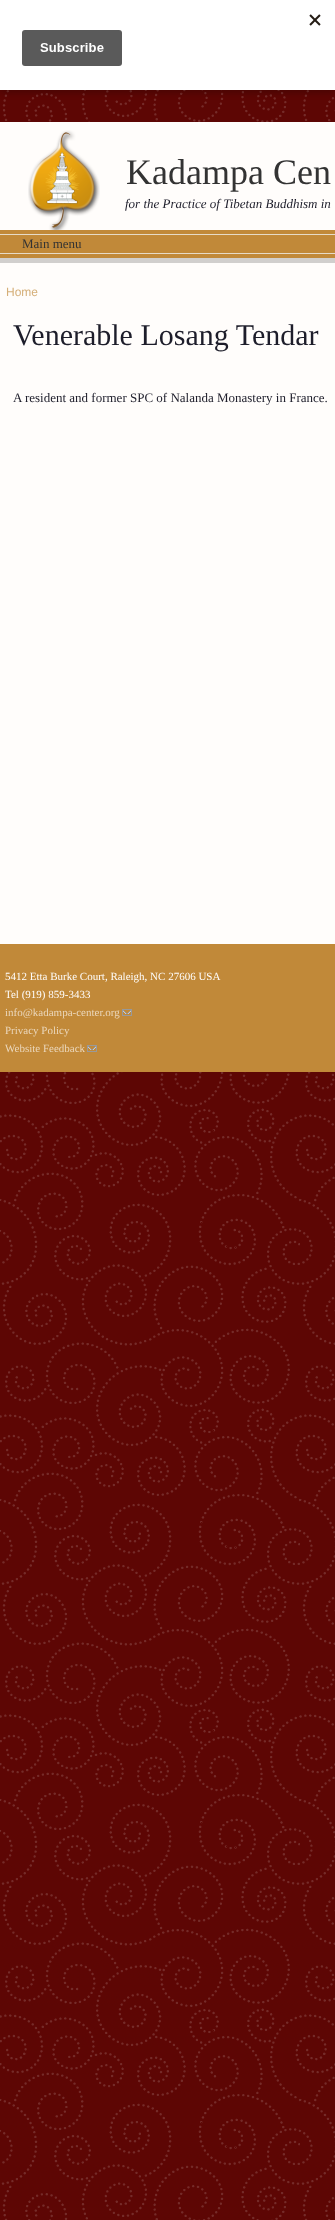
<!DOCTYPE html>
<meta charset="utf-8">
<style>body { margin: 0 } canvas { display: block }</style>
<canvas id="canvas" width="335" height="2220"></canvas>
<img id="img1" src="images/1.png" hidden>
<img id="img2" src="images/2.png" hidden>
<img id="img3" src="images/3.png" hidden>
<img id="img4" src="images/4.png" hidden>
<img id="img5" src="images/5.png" hidden>
<script>
window.onload = function () {
    const canvas = document.getElementById('canvas');
    const context = canvas.getContext('2d');
    context.miterLimit = 4;
    context.fontKerning = 'normal';

    context.fillStyle = 'rgb(93, 6, 4)';
    context.fillRect(0, 0, 335, 2220);
    context.drawImage(document.getElementById('img1'), 0, 90, 335, 2130);
    context.fillStyle = 'rgba(0, 0, 0, 0.2)';
    context.filter = 'blur(3px)';
    context.beginPath();
    context.rect(0, 3, 335, 90);
    context.fill();
    context.filter = 'none';
    context.fillStyle = 'rgb(255, 255, 255)';
    context.fillRect(0, 0, 335, 90);
    context.drawImage(document.getElementById('img2'), 22, 14, 299, 52);
    context.fillStyle = 'rgb(255, 253, 251)';
    context.fillRect(0, 122, 335, 108);
    context.drawImage(document.getElementById('img3'), 28, 130, 72, 100);
    context.fillRect(0, 258, 335, 686);
    context.drawImage(document.getElementById('img4'), 0, 258, 335, 5);
    context.fillStyle = 'rgb(193, 137, 57)';
    context.fillRect(0, 230, 335, 28);
    context.fillStyle = 'rgb(230, 219, 200)';
    context.fillRect(0, 234, 335, 1);
    context.fillRect(0, 253, 335, 1);
    context.fillStyle = 'rgb(193, 137, 57)';
    context.fillRect(0, 944, 335, 128);
    context.drawImage(document.getElementById('img5'), 122, 1009, 10, 7);
    context.drawImage(document.getElementById('img5'), 87, 1045, 10, 7);
    context.font = '36px Liberation Serif';
    context.fillStyle = 'rgb(51, 51, 51)';
    context.fillText('Kadampa Cen', 126, 184);
    context.font = 'italic 13px Liberation Serif';
    context.fillStyle = 'rgb(29, 29, 42)';
    context.fillText('for the Practice of Tibetan Buddhism in', 125, 208);
    context.font = '13px Liberation Serif';
    context.fillStyle = 'rgb(51, 51, 51)';
    context.fillText('Main menu', 22, 248);
    context.font = '12px Liberation Sans';
    context.fillStyle = 'rgb(213, 175, 121)';
    context.fillText('Home', 6, 296);
    context.font = '30px Liberation Serif';
    context.fillStyle = 'rgb(29, 29, 42)';
    context.fillText('Venerable Losang Tendar', 13, 345);
    context.font = '13px Liberation Serif';
    context.fillText('A resident and former SPC of Nalanda Monastery in France.', 13, 402);
    context.font = '11px Liberation Serif';
    context.fillStyle = 'rgb(255, 253, 251)';
    context.fillText('5412 Etta Burke Court, Raleigh, NC 27606 USA', 5, 980);
    context.fillText('Tel (919) 859-3433', 5, 998);
    context.fillStyle = 'rgb(235, 215, 187)';
    context.fillText('info@kadampa-center.org', 5, 1016);
    context.fillText('Privacy Policy', 5, 1034);
    context.fillText('Website Feedback', 5, 1052);
};
</script>
